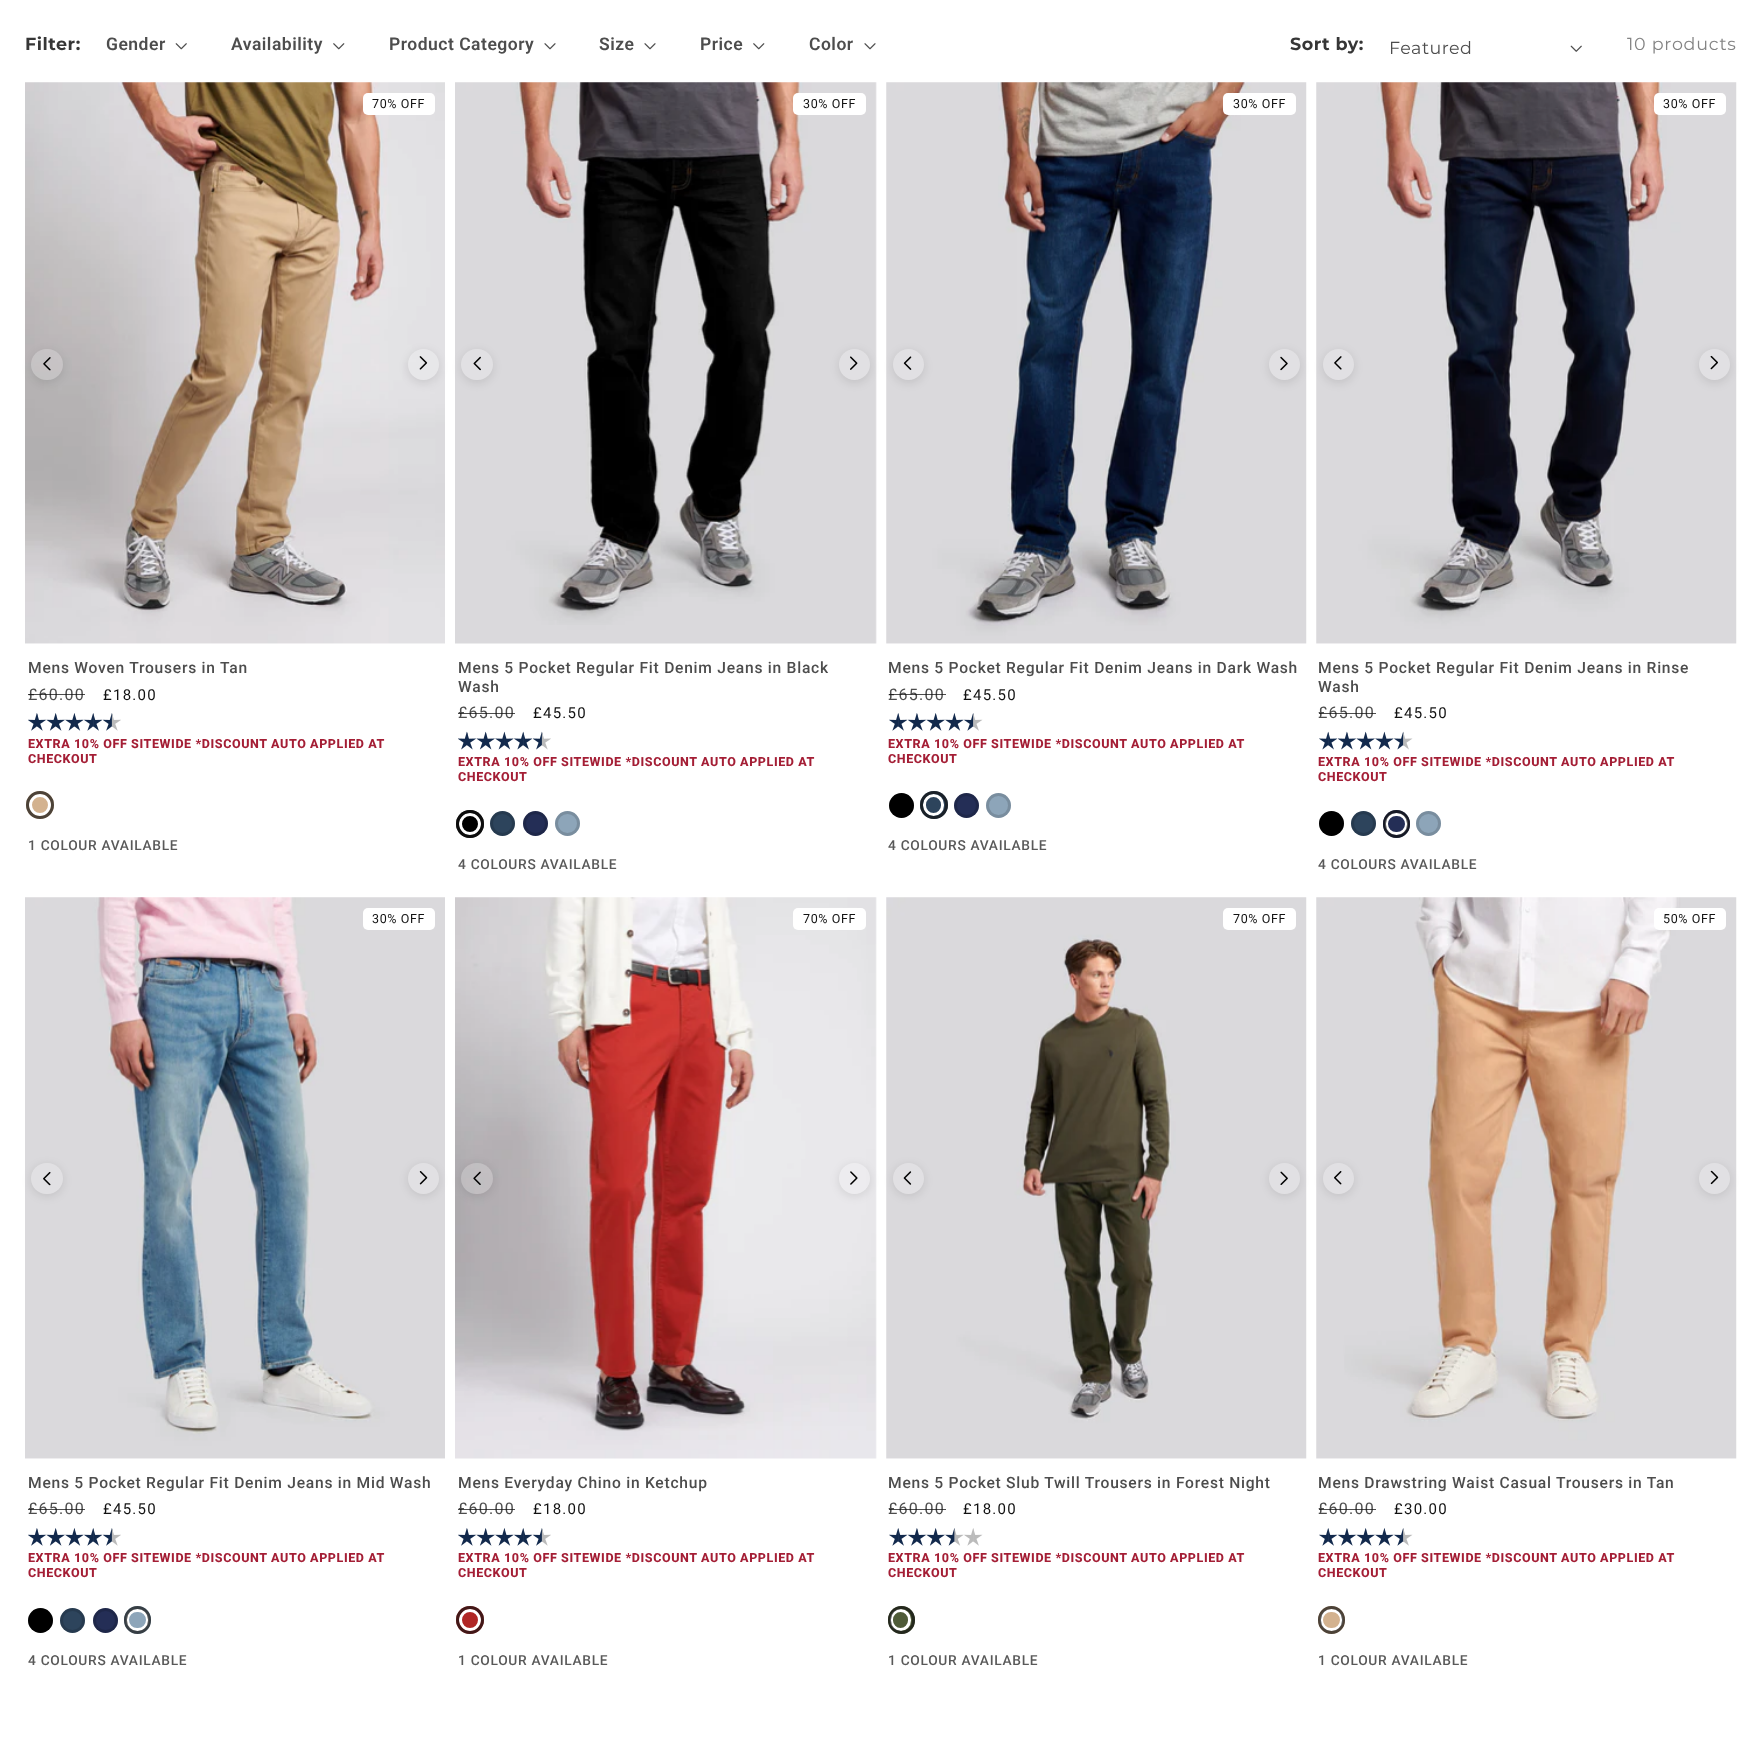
<!DOCTYPE html>
<meta charset="utf-8">
<style>body { margin: 0 } canvas { display: block }</style>
<canvas id="canvas" width="1761" height="1759"></canvas>
<img id="img1" src="images/1.png" hidden>
<img id="img2" src="images/2.png" hidden>
<img id="img3" src="images/3.png" hidden>
<img id="img4" src="images/4.png" hidden>
<img id="img5" src="images/5.png" hidden>
<img id="img6" src="images/6.png" hidden>
<img id="img7" src="images/7.png" hidden>
<img id="img8" src="images/8.png" hidden>
<img id="img9" src="images/9.png" hidden>
<img id="img10" src="images/10.png" hidden>
<img id="img11" src="images/11.png" hidden>
<img id="img12" src="images/12.png" hidden>
<img id="img13" src="images/13.png" hidden>
<img id="img14" src="images/14.png" hidden>
<img id="img15" src="images/15.png" hidden>
<img id="img16" src="images/16.png" hidden>
<img id="img17" src="images/17.png" hidden>
<img id="img18" src="images/18.png" hidden>
<img id="img19" src="images/19.png" hidden>
<img id="img20" src="images/20.png" hidden>
<img id="img21" src="images/21.png" hidden>
<img id="img22" src="images/22.png" hidden>
<img id="img23" src="images/23.png" hidden>
<img id="img24" src="images/24.png" hidden>
<img id="img25" src="images/25.png" hidden>
<img id="img26" src="images/26.png" hidden>
<img id="img27" src="images/27.png" hidden>
<img id="img28" src="images/28.png" hidden>
<img id="img29" src="images/29.png" hidden>
<img id="img30" src="images/30.png" hidden>
<img id="img31" src="images/31.png" hidden>
<img id="img32" src="images/32.png" hidden>
<img id="img33" src="images/33.png" hidden>
<img id="img34" src="images/34.png" hidden>
<img id="img35" src="images/35.png" hidden>
<img id="img36" src="images/36.png" hidden>
<img id="img37" src="images/37.png" hidden>
<img id="img38" src="images/38.png" hidden>
<img id="img39" src="images/39.png" hidden>
<img id="img40" src="images/40.png" hidden>
<img id="img41" src="images/41.png" hidden>
<img id="img42" src="images/42.png" hidden>
<script>
window.onload = function () {
    const canvas = document.getElementById('canvas');
    const context = canvas.getContext('2d');
    context.miterLimit = 4;
    context.fontKerning = 'normal';

    context.fillStyle = 'rgb(255, 255, 255)';
    context.fillRect(0, 0, 1761, 1759);
    context.drawImage(document.getElementById('img1'), 175, 43, 12, 7);
    context.drawImage(document.getElementById('img2'), 333, 43, 12, 7);
    context.drawImage(document.getElementById('img3'), 544, 43, 12, 7);
    context.drawImage(document.getElementById('img3'), 644, 43, 12, 7);
    context.drawImage(document.getElementById('img2'), 753, 43, 12, 7);
    context.drawImage(document.getElementById('img3'), 864, 43, 12, 7);
    context.drawImage(document.getElementById('img4'), 1570, 45, 12, 7);
    context.drawImage(document.getElementById('img5'), 25, 82, 420, 562);
    context.beginPath();
    context.roundRect(363, 93, 72, 22, 5);
    context.fill();
    context.save();
    context.beginPath();
    context.moveTo(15, 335);
    context.lineTo(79, 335);
    context.lineTo(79, 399);
    context.lineTo(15, 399);
    context.closePath();
    context.moveTo(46.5, 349);
    context.lineTo(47.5, 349);
    context.bezierCurveTo(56, 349, 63, 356, 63, 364.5);
    context.bezierCurveTo(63, 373, 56, 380, 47.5, 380);
    context.lineTo(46.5, 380);
    context.bezierCurveTo(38, 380, 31, 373, 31, 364.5);
    context.bezierCurveTo(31, 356, 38, 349, 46.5, 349);
    context.closePath();
    context.clip('evenodd');
    context.fillStyle = 'rgba(0, 0, 0, 0.1)';
    context.filter = 'blur(5px)';
    context.beginPath();
    context.roundRect(31, 351, 32, 32, 16);
    context.fill();
    context.filter = 'none';
    context.restore();
    context.fillStyle = 'rgba(255, 255, 255, 0.2)';
    context.beginPath();
    context.roundRect(31, 349, 32, 31, 15.5);
    context.fill();
    context.drawImage(document.getElementById('img6'), 43, 357, 8, 14);
    context.save();
    context.beginPath();
    context.moveTo(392, 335);
    context.lineTo(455, 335);
    context.lineTo(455, 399);
    context.lineTo(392, 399);
    context.closePath();
    context.moveTo(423.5, 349);
    context.bezierCurveTo(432, 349, 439, 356, 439, 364.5);
    context.bezierCurveTo(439, 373, 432, 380, 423.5, 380);
    context.bezierCurveTo(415, 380, 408, 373, 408, 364.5);
    context.bezierCurveTo(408, 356, 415, 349, 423.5, 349);
    context.closePath();
    context.clip('evenodd');
    context.fillStyle = 'rgba(0, 0, 0, 0.1)';
    context.filter = 'blur(5px)';
    context.beginPath();
    context.roundRect(408, 351, 31, 32, 15.5);
    context.fill();
    context.filter = 'none';
    context.restore();
    context.beginPath();
    context.arc(423.5, 364.5, 15.5, 0, 2 * Math.PI);
    context.fill();
    context.drawImage(document.getElementById('img7'), 419, 356, 9, 14);
    context.drawImage(document.getElementById('img8'), 28, 713, 18, 18);
    context.drawImage(document.getElementById('img9'), 46, 713, 19, 18);
    context.drawImage(document.getElementById('img10'), 65, 713, 19, 18);
    context.drawImage(document.getElementById('img11'), 84, 713, 19, 18);
    context.drawImage(document.getElementById('img12'), 103, 713, 18, 18);
    context.fillStyle = 'rgb(211, 178, 143)';
    context.beginPath();
    context.arc(40, 805, 14, 0, 2 * Math.PI);
    context.fill();
    context.beginPath();
    context.arc(40, 805, 9.5, 0, 2 * Math.PI);
    context.strokeStyle = 'rgb(255, 255, 255)';
    context.lineWidth = 3;
    context.stroke();
    context.beginPath();
    context.arc(40, 805, 12.5, 0, 2 * Math.PI);
    context.strokeStyle = 'rgba(18, 18, 18, 0.7)';
    context.stroke();
    context.drawImage(document.getElementById('img13'), 455, 82, 422, 562);
    context.fillStyle = 'rgb(255, 255, 255)';
    context.beginPath();
    context.roundRect(793, 93, 73, 22, 5);
    context.fill();
    context.save();
    context.beginPath();
    context.moveTo(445, 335);
    context.lineTo(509, 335);
    context.lineTo(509, 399);
    context.lineTo(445, 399);
    context.closePath();
    context.moveTo(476.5, 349);
    context.lineTo(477.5, 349);
    context.bezierCurveTo(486, 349, 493, 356, 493, 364.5);
    context.bezierCurveTo(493, 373, 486, 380, 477.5, 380);
    context.lineTo(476.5, 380);
    context.bezierCurveTo(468, 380, 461, 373, 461, 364.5);
    context.bezierCurveTo(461, 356, 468, 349, 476.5, 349);
    context.closePath();
    context.clip('evenodd');
    context.fillStyle = 'rgba(0, 0, 0, 0.1)';
    context.filter = 'blur(5px)';
    context.beginPath();
    context.roundRect(461, 351, 32, 32, 16);
    context.fill();
    context.filter = 'none';
    context.restore();
    context.fillStyle = 'rgba(255, 255, 255, 0.2)';
    context.beginPath();
    context.roundRect(461, 349, 32, 31, 15.5);
    context.fill();
    context.drawImage(document.getElementById('img14'), 473, 356, 8, 15);
    context.save();
    context.beginPath();
    context.moveTo(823, 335);
    context.lineTo(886, 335);
    context.lineTo(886, 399);
    context.lineTo(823, 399);
    context.closePath();
    context.moveTo(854.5, 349);
    context.bezierCurveTo(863, 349, 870, 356, 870, 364.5);
    context.bezierCurveTo(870, 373, 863, 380, 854.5, 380);
    context.bezierCurveTo(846, 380, 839, 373, 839, 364.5);
    context.bezierCurveTo(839, 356, 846, 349, 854.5, 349);
    context.closePath();
    context.clip('evenodd');
    context.fillStyle = 'rgba(0, 0, 0, 0.1)';
    context.filter = 'blur(5px)';
    context.beginPath();
    context.roundRect(839, 351, 31, 32, 15.5);
    context.fill();
    context.filter = 'none';
    context.restore();
    context.beginPath();
    context.arc(854.5, 364.5, 15.5, 0, 2 * Math.PI);
    context.fill();
    context.drawImage(document.getElementById('img15'), 850, 356, 8, 14);
    context.drawImage(document.getElementById('img16'), 458, 731, 18, 19);
    context.drawImage(document.getElementById('img17'), 476, 731, 19, 19);
    context.drawImage(document.getElementById('img18'), 495, 731, 19, 19);
    context.drawImage(document.getElementById('img19'), 514, 731, 19, 19);
    context.drawImage(document.getElementById('img20'), 533, 731, 18, 19);
    context.fillStyle = 'rgb(0, 0, 0)';
    context.beginPath();
    context.arc(470, 824, 14, 0, 2 * Math.PI);
    context.fill();
    context.beginPath();
    context.arc(470, 824, 9.5, 0, 2 * Math.PI);
    context.strokeStyle = 'rgb(255, 255, 255)';
    context.stroke();
    context.beginPath();
    context.arc(470, 824, 12.5, 0, 2 * Math.PI);
    context.strokeStyle = 'rgba(18, 18, 18, 0.7)';
    context.stroke();
    context.fillStyle = 'rgb(45, 68, 92)';
    context.beginPath();
    context.arc(502.5, 823.5, 12.5, 0, 2 * Math.PI);
    context.fill();
    context.beginPath();
    context.arc(502.5, 823.5, 11, 0, 2 * Math.PI);
    context.strokeStyle = 'rgba(0, 0, 0, 0.14)';
    context.stroke();
    context.fillStyle = 'rgb(36, 46, 86)';
    context.beginPath();
    context.arc(535.5, 823.5, 12.5, 0, 2 * Math.PI);
    context.fill();
    context.beginPath();
    context.arc(535.5, 823.5, 11, 0, 2 * Math.PI);
    context.stroke();
    context.fillStyle = 'rgb(141, 165, 185)';
    context.beginPath();
    context.arc(567.5, 823.5, 12.5, 0, 2 * Math.PI);
    context.fill();
    context.beginPath();
    context.arc(567.5, 823.5, 11, 0, 2 * Math.PI);
    context.stroke();
    context.drawImage(document.getElementById('img21'), 886, 82, 421, 562);
    context.fillStyle = 'rgb(255, 255, 255)';
    context.beginPath();
    context.roundRect(1223, 93, 73, 22, 5);
    context.fill();
    context.save();
    context.beginPath();
    context.moveTo(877, 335);
    context.lineTo(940, 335);
    context.lineTo(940, 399);
    context.lineTo(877, 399);
    context.closePath();
    context.moveTo(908.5, 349);
    context.bezierCurveTo(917, 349, 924, 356, 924, 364.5);
    context.bezierCurveTo(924, 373, 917, 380, 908.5, 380);
    context.bezierCurveTo(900, 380, 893, 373, 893, 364.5);
    context.bezierCurveTo(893, 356, 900, 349, 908.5, 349);
    context.closePath();
    context.clip('evenodd');
    context.fillStyle = 'rgba(0, 0, 0, 0.1)';
    context.filter = 'blur(5px)';
    context.beginPath();
    context.roundRect(893, 351, 31, 32, 15.5);
    context.fill();
    context.filter = 'none';
    context.restore();
    context.fillStyle = 'rgba(255, 255, 255, 0.2)';
    context.beginPath();
    context.arc(908.5, 364.5, 15.5, 0, 2 * Math.PI);
    context.fill();
    context.drawImage(document.getElementById('img22'), 903, 356, 9, 14);
    context.save();
    context.beginPath();
    context.moveTo(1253, 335);
    context.lineTo(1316, 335);
    context.lineTo(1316, 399);
    context.lineTo(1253, 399);
    context.closePath();
    context.moveTo(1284.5, 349);
    context.bezierCurveTo(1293, 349, 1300, 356, 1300, 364.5);
    context.bezierCurveTo(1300, 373, 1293, 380, 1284.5, 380);
    context.bezierCurveTo(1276, 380, 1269, 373, 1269, 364.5);
    context.bezierCurveTo(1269, 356, 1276, 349, 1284.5, 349);
    context.closePath();
    context.clip('evenodd');
    context.fillStyle = 'rgba(0, 0, 0, 0.1)';
    context.filter = 'blur(5px)';
    context.beginPath();
    context.roundRect(1269, 351, 31, 32, 15.5);
    context.fill();
    context.filter = 'none';
    context.restore();
    context.beginPath();
    context.arc(1284.5, 364.5, 15.5, 0, 2 * Math.PI);
    context.fill();
    context.drawImage(document.getElementById('img23'), 1280, 356, 8, 15);
    context.drawImage(document.getElementById('img11'), 889, 713, 19, 18);
    context.drawImage(document.getElementById('img8'), 908, 713, 18, 18);
    context.drawImage(document.getElementById('img9'), 926, 713, 19, 18);
    context.drawImage(document.getElementById('img10'), 945, 713, 19, 18);
    context.drawImage(document.getElementById('img24'), 964, 713, 19, 18);
    context.fillStyle = 'rgb(0, 0, 0)';
    context.beginPath();
    context.arc(901.5, 805.5, 12.5, 0, 2 * Math.PI);
    context.fill();
    context.beginPath();
    context.arc(901.5, 805.5, 11, 0, 2 * Math.PI);
    context.stroke();
    context.fillStyle = 'rgb(45, 68, 92)';
    context.beginPath();
    context.arc(934, 805, 14, 0, 2 * Math.PI);
    context.fill();
    context.beginPath();
    context.roundRect(924.5, 795.5, 18, 19, 9);
    context.strokeStyle = 'rgb(255, 255, 255)';
    context.stroke();
    context.beginPath();
    context.arc(934, 805, 12.5, 0, 2 * Math.PI);
    context.strokeStyle = 'rgba(18, 18, 18, 0.7)';
    context.stroke();
    context.fillStyle = 'rgb(36, 46, 86)';
    context.beginPath();
    context.arc(966.5, 805.5, 12.5, 0, 2 * Math.PI);
    context.fill();
    context.beginPath();
    context.arc(966.5, 805.5, 11, 0, 2 * Math.PI);
    context.strokeStyle = 'rgba(0, 0, 0, 0.14)';
    context.stroke();
    context.fillStyle = 'rgb(141, 165, 185)';
    context.beginPath();
    context.arc(998.5, 805.5, 12.5, 0, 2 * Math.PI);
    context.fill();
    context.beginPath();
    context.arc(998.5, 805.5, 11, 0, 2 * Math.PI);
    context.stroke();
    context.drawImage(document.getElementById('img25'), 1316, 82, 421, 562);
    context.fillStyle = 'rgb(255, 255, 255)';
    context.beginPath();
    context.roundRect(1654, 93, 72, 22, 5);
    context.fill();
    context.save();
    context.beginPath();
    context.moveTo(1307, 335);
    context.lineTo(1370, 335);
    context.lineTo(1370, 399);
    context.lineTo(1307, 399);
    context.closePath();
    context.moveTo(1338.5, 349);
    context.bezierCurveTo(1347, 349, 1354, 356, 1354, 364.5);
    context.bezierCurveTo(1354, 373, 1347, 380, 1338.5, 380);
    context.bezierCurveTo(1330, 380, 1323, 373, 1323, 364.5);
    context.bezierCurveTo(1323, 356, 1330, 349, 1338.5, 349);
    context.closePath();
    context.clip('evenodd');
    context.fillStyle = 'rgba(0, 0, 0, 0.1)';
    context.filter = 'blur(5px)';
    context.beginPath();
    context.roundRect(1323, 351, 31, 32, 15.5);
    context.fill();
    context.filter = 'none';
    context.restore();
    context.fillStyle = 'rgba(255, 255, 255, 0.2)';
    context.beginPath();
    context.arc(1338.5, 364.5, 15.5, 0, 2 * Math.PI);
    context.fill();
    context.drawImage(document.getElementById('img26'), 1334, 356, 8, 14);
    context.save();
    context.beginPath();
    context.moveTo(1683, 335);
    context.lineTo(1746, 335);
    context.lineTo(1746, 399);
    context.lineTo(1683, 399);
    context.closePath();
    context.moveTo(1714.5, 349);
    context.bezierCurveTo(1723, 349, 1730, 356, 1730, 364.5);
    context.bezierCurveTo(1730, 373, 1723, 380, 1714.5, 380);
    context.bezierCurveTo(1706, 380, 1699, 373, 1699, 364.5);
    context.bezierCurveTo(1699, 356, 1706, 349, 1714.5, 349);
    context.closePath();
    context.clip('evenodd');
    context.fillStyle = 'rgba(0, 0, 0, 0.1)';
    context.filter = 'blur(5px)';
    context.beginPath();
    context.roundRect(1699, 351, 31, 32, 15.5);
    context.fill();
    context.filter = 'none';
    context.restore();
    context.beginPath();
    context.arc(1714.5, 364.5, 15.5, 0, 2 * Math.PI);
    context.fill();
    context.drawImage(document.getElementById('img27'), 1710, 355, 8, 15);
    context.drawImage(document.getElementById('img19'), 1319, 731, 19, 19);
    context.drawImage(document.getElementById('img16'), 1338, 731, 18, 19);
    context.drawImage(document.getElementById('img17'), 1356, 731, 19, 19);
    context.drawImage(document.getElementById('img18'), 1375, 731, 19, 19);
    context.drawImage(document.getElementById('img28'), 1394, 731, 19, 19);
    context.fillStyle = 'rgb(0, 0, 0)';
    context.beginPath();
    context.arc(1331.5, 823.5, 12.5, 0, 2 * Math.PI);
    context.fill();
    context.beginPath();
    context.arc(1331.5, 823.5, 11, 0, 2 * Math.PI);
    context.stroke();
    context.fillStyle = 'rgb(45, 68, 92)';
    context.beginPath();
    context.arc(1363.5, 823.5, 12.5, 0, 2 * Math.PI);
    context.fill();
    context.beginPath();
    context.arc(1363.5, 823.5, 11, 0, 2 * Math.PI);
    context.stroke();
    context.fillStyle = 'rgb(36, 46, 86)';
    context.beginPath();
    context.roundRect(1383, 810, 27, 28, 13.5);
    context.fill();
    context.beginPath();
    context.roundRect(1386.5, 814.5, 20, 19, 9.5);
    context.strokeStyle = 'rgb(255, 255, 255)';
    context.stroke();
    context.beginPath();
    context.roundRect(1384.5, 811.5, 24, 25, 12);
    context.strokeStyle = 'rgba(18, 18, 18, 0.7)';
    context.stroke();
    context.fillStyle = 'rgb(141, 165, 185)';
    context.beginPath();
    context.arc(1428.5, 823.5, 12.5, 0, 2 * Math.PI);
    context.fill();
    context.beginPath();
    context.arc(1428.5, 823.5, 11, 0, 2 * Math.PI);
    context.strokeStyle = 'rgba(0, 0, 0, 0.14)';
    context.stroke();
    context.drawImage(document.getElementById('img29'), 25, 897, 420, 562);
    context.fillStyle = 'rgb(255, 255, 255)';
    context.beginPath();
    context.roundRect(363, 908, 72, 22, 5);
    context.fill();
    context.save();
    context.beginPath();
    context.moveTo(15, 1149);
    context.lineTo(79, 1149);
    context.lineTo(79, 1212);
    context.lineTo(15, 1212);
    context.closePath();
    context.moveTo(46.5, 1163);
    context.lineTo(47.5, 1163);
    context.bezierCurveTo(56, 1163, 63, 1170, 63, 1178.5);
    context.bezierCurveTo(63, 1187, 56, 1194, 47.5, 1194);
    context.lineTo(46.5, 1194);
    context.bezierCurveTo(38, 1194, 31, 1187, 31, 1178.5);
    context.bezierCurveTo(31, 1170, 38, 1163, 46.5, 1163);
    context.closePath();
    context.clip('evenodd');
    context.fillStyle = 'rgba(0, 0, 0, 0.1)';
    context.filter = 'blur(5px)';
    context.beginPath();
    context.roundRect(31, 1165, 32, 31, 15.5);
    context.fill();
    context.filter = 'none';
    context.restore();
    context.fillStyle = 'rgba(255, 255, 255, 0.2)';
    context.beginPath();
    context.roundRect(31, 1163, 32, 31, 15.5);
    context.fill();
    context.drawImage(document.getElementById('img30'), 43, 1171, 8, 15);
    context.save();
    context.beginPath();
    context.moveTo(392, 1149);
    context.lineTo(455, 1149);
    context.lineTo(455, 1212);
    context.lineTo(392, 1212);
    context.closePath();
    context.moveTo(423.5, 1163);
    context.bezierCurveTo(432, 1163, 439, 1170, 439, 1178.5);
    context.bezierCurveTo(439, 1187, 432, 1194, 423.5, 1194);
    context.bezierCurveTo(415, 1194, 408, 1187, 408, 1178.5);
    context.bezierCurveTo(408, 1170, 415, 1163, 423.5, 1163);
    context.closePath();
    context.clip('evenodd');
    context.fillStyle = 'rgba(0, 0, 0, 0.1)';
    context.filter = 'blur(5px)';
    context.beginPath();
    context.roundRect(408, 1165, 31, 31, 15.5);
    context.fill();
    context.filter = 'none';
    context.restore();
    context.beginPath();
    context.arc(423.5, 1178.5, 15.5, 0, 2 * Math.PI);
    context.fill();
    context.drawImage(document.getElementById('img31'), 419, 1171, 9, 14);
    context.drawImage(document.getElementById('img8'), 28, 1528, 18, 18);
    context.drawImage(document.getElementById('img9'), 46, 1528, 19, 18);
    context.drawImage(document.getElementById('img10'), 65, 1528, 19, 18);
    context.drawImage(document.getElementById('img11'), 84, 1528, 19, 18);
    context.drawImage(document.getElementById('img12'), 103, 1528, 18, 18);
    context.fillStyle = 'rgb(0, 0, 0)';
    context.beginPath();
    context.arc(40.5, 1620.5, 12.5, 0, 2 * Math.PI);
    context.fill();
    context.beginPath();
    context.arc(40.5, 1620.5, 11, 0, 2 * Math.PI);
    context.stroke();
    context.fillStyle = 'rgb(45, 68, 92)';
    context.beginPath();
    context.arc(72.5, 1620.5, 12.5, 0, 2 * Math.PI);
    context.fill();
    context.beginPath();
    context.arc(72.5, 1620.5, 11, 0, 2 * Math.PI);
    context.stroke();
    context.fillStyle = 'rgb(36, 46, 86)';
    context.beginPath();
    context.arc(105.5, 1620.5, 12.5, 0, 2 * Math.PI);
    context.fill();
    context.beginPath();
    context.arc(105.5, 1620.5, 11, 0, 2 * Math.PI);
    context.stroke();
    context.fillStyle = 'rgb(141, 165, 185)';
    context.beginPath();
    context.roundRect(124, 1606, 27, 28, 13.5);
    context.fill();
    context.beginPath();
    context.roundRect(127.5, 1610.5, 20, 19, 9.5);
    context.strokeStyle = 'rgb(255, 255, 255)';
    context.stroke();
    context.beginPath();
    context.roundRect(125.5, 1607.5, 24, 25, 12);
    context.strokeStyle = 'rgba(18, 18, 18, 0.7)';
    context.stroke();
    context.drawImage(document.getElementById('img32'), 455, 897, 422, 562);
    context.fillStyle = 'rgb(255, 255, 255)';
    context.beginPath();
    context.roundRect(793, 908, 73, 22, 5);
    context.fill();
    context.save();
    context.beginPath();
    context.moveTo(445, 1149);
    context.lineTo(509, 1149);
    context.lineTo(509, 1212);
    context.lineTo(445, 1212);
    context.closePath();
    context.moveTo(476.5, 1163);
    context.lineTo(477.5, 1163);
    context.bezierCurveTo(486, 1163, 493, 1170, 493, 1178.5);
    context.bezierCurveTo(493, 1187, 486, 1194, 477.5, 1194);
    context.lineTo(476.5, 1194);
    context.bezierCurveTo(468, 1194, 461, 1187, 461, 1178.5);
    context.bezierCurveTo(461, 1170, 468, 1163, 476.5, 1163);
    context.closePath();
    context.clip('evenodd');
    context.fillStyle = 'rgba(0, 0, 0, 0.1)';
    context.filter = 'blur(5px)';
    context.beginPath();
    context.roundRect(461, 1165, 32, 31, 15.5);
    context.fill();
    context.filter = 'none';
    context.restore();
    context.fillStyle = 'rgba(255, 255, 255, 0.2)';
    context.beginPath();
    context.roundRect(461, 1163, 32, 31, 15.5);
    context.fill();
    context.drawImage(document.getElementById('img33'), 473, 1171, 8, 14);
    context.save();
    context.beginPath();
    context.moveTo(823, 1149);
    context.lineTo(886, 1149);
    context.lineTo(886, 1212);
    context.lineTo(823, 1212);
    context.closePath();
    context.moveTo(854.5, 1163);
    context.bezierCurveTo(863, 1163, 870, 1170, 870, 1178.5);
    context.bezierCurveTo(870, 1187, 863, 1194, 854.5, 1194);
    context.bezierCurveTo(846, 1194, 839, 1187, 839, 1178.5);
    context.bezierCurveTo(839, 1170, 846, 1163, 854.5, 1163);
    context.closePath();
    context.clip('evenodd');
    context.fillStyle = 'rgba(0, 0, 0, 0.1)';
    context.filter = 'blur(5px)';
    context.beginPath();
    context.roundRect(839, 1165, 31, 31, 15.5);
    context.fill();
    context.filter = 'none';
    context.restore();
    context.beginPath();
    context.arc(854.5, 1178.5, 15.5, 0, 2 * Math.PI);
    context.fill();
    context.drawImage(document.getElementById('img34'), 850, 1171, 8, 14);
    context.drawImage(document.getElementById('img8'), 458, 1528, 18, 18);
    context.drawImage(document.getElementById('img9'), 476, 1528, 19, 18);
    context.drawImage(document.getElementById('img10'), 495, 1528, 19, 18);
    context.drawImage(document.getElementById('img11'), 514, 1528, 19, 18);
    context.drawImage(document.getElementById('img12'), 533, 1528, 18, 18);
    context.fillStyle = 'rgb(176, 38, 37)';
    context.beginPath();
    context.arc(470, 1620, 14, 0, 2 * Math.PI);
    context.fill();
    context.beginPath();
    context.arc(470, 1620, 9.5, 0, 2 * Math.PI);
    context.strokeStyle = 'rgb(255, 255, 255)';
    context.stroke();
    context.beginPath();
    context.arc(470, 1620, 12.5, 0, 2 * Math.PI);
    context.strokeStyle = 'rgba(18, 18, 18, 0.7)';
    context.stroke();
    context.drawImage(document.getElementById('img35'), 886, 897, 421, 562);
    context.fillStyle = 'rgb(255, 255, 255)';
    context.beginPath();
    context.roundRect(1223, 908, 73, 22, 5);
    context.fill();
    context.save();
    context.beginPath();
    context.moveTo(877, 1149);
    context.lineTo(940, 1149);
    context.lineTo(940, 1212);
    context.lineTo(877, 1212);
    context.closePath();
    context.moveTo(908.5, 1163);
    context.bezierCurveTo(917, 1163, 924, 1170, 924, 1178.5);
    context.bezierCurveTo(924, 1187, 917, 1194, 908.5, 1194);
    context.bezierCurveTo(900, 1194, 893, 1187, 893, 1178.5);
    context.bezierCurveTo(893, 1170, 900, 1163, 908.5, 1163);
    context.closePath();
    context.clip('evenodd');
    context.fillStyle = 'rgba(0, 0, 0, 0.1)';
    context.filter = 'blur(5px)';
    context.beginPath();
    context.roundRect(893, 1165, 31, 31, 15.5);
    context.fill();
    context.filter = 'none';
    context.restore();
    context.fillStyle = 'rgba(255, 255, 255, 0.2)';
    context.beginPath();
    context.arc(908.5, 1178.5, 15.5, 0, 2 * Math.PI);
    context.fill();
    context.drawImage(document.getElementById('img36'), 903, 1171, 9, 14);
    context.save();
    context.beginPath();
    context.moveTo(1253, 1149);
    context.lineTo(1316, 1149);
    context.lineTo(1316, 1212);
    context.lineTo(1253, 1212);
    context.closePath();
    context.moveTo(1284.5, 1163);
    context.bezierCurveTo(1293, 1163, 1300, 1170, 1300, 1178.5);
    context.bezierCurveTo(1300, 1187, 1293, 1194, 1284.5, 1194);
    context.bezierCurveTo(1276, 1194, 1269, 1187, 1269, 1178.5);
    context.bezierCurveTo(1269, 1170, 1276, 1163, 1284.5, 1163);
    context.closePath();
    context.clip('evenodd');
    context.fillStyle = 'rgba(0, 0, 0, 0.1)';
    context.filter = 'blur(5px)';
    context.beginPath();
    context.roundRect(1269, 1165, 31, 31, 15.5);
    context.fill();
    context.filter = 'none';
    context.restore();
    context.beginPath();
    context.arc(1284.5, 1178.5, 15.5, 0, 2 * Math.PI);
    context.fill();
    context.drawImage(document.getElementById('img37'), 1280, 1171, 8, 14);
    context.drawImage(document.getElementById('img11'), 889, 1528, 19, 18);
    context.drawImage(document.getElementById('img8'), 908, 1528, 18, 18);
    context.drawImage(document.getElementById('img9'), 926, 1528, 19, 18);
    context.drawImage(document.getElementById('img38'), 945, 1528, 19, 18);
    context.drawImage(document.getElementById('img39'), 964, 1528, 19, 18);
    context.fillStyle = 'rgb(79, 91, 56)';
    context.beginPath();
    context.roundRect(888, 1606, 27, 28, 13.5);
    context.fill();
    context.beginPath();
    context.roundRect(891.5, 1610.5, 18, 19, 9);
    context.strokeStyle = 'rgb(255, 255, 255)';
    context.stroke();
    context.beginPath();
    context.roundRect(889.5, 1607.5, 24, 25, 12);
    context.strokeStyle = 'rgba(18, 18, 18, 0.7)';
    context.stroke();
    context.drawImage(document.getElementById('img40'), 1316, 897, 421, 562);
    context.fillStyle = 'rgb(255, 255, 255)';
    context.beginPath();
    context.roundRect(1654, 908, 72, 22, 5);
    context.fill();
    context.save();
    context.beginPath();
    context.moveTo(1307, 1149);
    context.lineTo(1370, 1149);
    context.lineTo(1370, 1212);
    context.lineTo(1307, 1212);
    context.closePath();
    context.moveTo(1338.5, 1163);
    context.bezierCurveTo(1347, 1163, 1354, 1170, 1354, 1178.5);
    context.bezierCurveTo(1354, 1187, 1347, 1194, 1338.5, 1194);
    context.bezierCurveTo(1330, 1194, 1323, 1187, 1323, 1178.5);
    context.bezierCurveTo(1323, 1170, 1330, 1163, 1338.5, 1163);
    context.closePath();
    context.clip('evenodd');
    context.fillStyle = 'rgba(0, 0, 0, 0.1)';
    context.filter = 'blur(5px)';
    context.beginPath();
    context.roundRect(1323, 1165, 31, 31, 15.5);
    context.fill();
    context.filter = 'none';
    context.restore();
    context.fillStyle = 'rgba(255, 255, 255, 0.2)';
    context.beginPath();
    context.arc(1338.5, 1178.5, 15.5, 0, 2 * Math.PI);
    context.fill();
    context.drawImage(document.getElementById('img41'), 1334, 1171, 8, 14);
    context.save();
    context.beginPath();
    context.moveTo(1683, 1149);
    context.lineTo(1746, 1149);
    context.lineTo(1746, 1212);
    context.lineTo(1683, 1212);
    context.closePath();
    context.moveTo(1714.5, 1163);
    context.bezierCurveTo(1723, 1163, 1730, 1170, 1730, 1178.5);
    context.bezierCurveTo(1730, 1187, 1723, 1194, 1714.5, 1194);
    context.bezierCurveTo(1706, 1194, 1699, 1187, 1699, 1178.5);
    context.bezierCurveTo(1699, 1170, 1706, 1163, 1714.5, 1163);
    context.closePath();
    context.clip('evenodd');
    context.fillStyle = 'rgba(0, 0, 0, 0.1)';
    context.filter = 'blur(5px)';
    context.beginPath();
    context.roundRect(1699, 1165, 31, 31, 15.5);
    context.fill();
    context.filter = 'none';
    context.restore();
    context.beginPath();
    context.arc(1714.5, 1178.5, 15.5, 0, 2 * Math.PI);
    context.fill();
    context.drawImage(document.getElementById('img42'), 1710, 1170, 9, 15);
    context.drawImage(document.getElementById('img11'), 1319, 1528, 19, 18);
    context.drawImage(document.getElementById('img8'), 1338, 1528, 18, 18);
    context.drawImage(document.getElementById('img9'), 1356, 1528, 19, 18);
    context.drawImage(document.getElementById('img10'), 1375, 1528, 19, 18);
    context.drawImage(document.getElementById('img24'), 1394, 1528, 19, 18);
    context.fillStyle = 'rgb(211, 178, 143)';
    context.beginPath();
    context.roundRect(1318, 1606, 27, 28, 13.5);
    context.fill();
    context.beginPath();
    context.roundRect(1321.5, 1610.5, 20, 19, 9.5);
    context.strokeStyle = 'rgb(255, 255, 255)';
    context.stroke();
    context.beginPath();
    context.roundRect(1319.5, 1607.5, 24, 25, 12);
    context.strokeStyle = 'rgba(18, 18, 18, 0.7)';
    context.stroke();
    context.letterSpacing = '0.5px';
    context.font = 'bold 17.5px Montserrat';
    context.fillStyle = 'rgb(54, 54, 54)';
    context.fillText('Filter:', 25, 50);
    context.font = '600 17.5px Roboto';
    context.fillStyle = 'rgb(77, 77, 77)';
    context.fillText('Gender', 106, 50);
    context.fillText('Availability', 231, 50);
    context.fillText('Product Category', 389, 50);
    context.fillText('Size', 599, 50);
    context.fillText('Price', 700, 50);
    context.fillText('Color', 809, 50);
    context.font = 'bold 17.5px Montserrat';
    context.fillStyle = 'rgb(54, 54, 54)';
    context.fillText('Sort by:', 1290, 50);
    context.font = '100 17.5px Montserrat';
    context.fillStyle = 'rgb(77, 77, 77)';
    context.fillText('Featured', 1389, 54);
    context.letterSpacing = '0.75px';
    context.fillStyle = 'rgb(131, 131, 131)';
    context.fillText('10 products', 1627, 50);
    context.letterSpacing = '0.6px';
    context.font = '12.5px Roboto';
    context.fillStyle = 'rgb(18, 18, 18)';
    context.fillText('70% OFF', 372, 108);
    context.letterSpacing = '0.75px';
    context.font = '500 15.6px Roboto';
    context.fillStyle = 'rgb(77, 77, 77)';
    context.fillText('Mens Woven Trousers in Tan', 28, 673);
    context.letterSpacing = '1.25px';
    context.font = '16px Roboto';
    context.fillText('£60.00', 28, 700);
    context.fillStyle = 'rgba(18, 18, 18, 0.75)';
    context.fillRect(28, 694, 57, 1);
    context.font = '15px Roboto';
    context.fillStyle = 'rgb(18, 18, 18)';
    context.fillText('£18.00', 103, 700);
    context.letterSpacing = '0.6px';
    context.font = '800 12.5px Roboto';
    context.fillStyle = 'rgb(164, 30, 53)';
    context.fillText('EXTRA 10% OFF SITEWIDE *DISCOUNT AUTO APPLIED AT', 28, 748);
    context.fillText('CHECKOUT', 28, 763);
    context.letterSpacing = '0.7px';
    context.font = '500 13.75px Roboto';
    context.fillStyle = 'rgb(89, 89, 89)';
    context.fillText('1 COLOUR AVAILABLE', 28, 850);
    context.letterSpacing = '0.6px';
    context.font = '12.5px Roboto';
    context.fillStyle = 'rgb(18, 18, 18)';
    context.fillText('30% OFF', 803, 108);
    context.letterSpacing = '0.75px';
    context.font = '500 15.6px Roboto';
    context.fillStyle = 'rgb(77, 77, 77)';
    context.fillText('Mens 5 Pocket Regular Fit Denim Jeans in Black', 458, 673);
    context.fillText('Wash', 458, 692);
    context.letterSpacing = '1.25px';
    context.font = '16px Roboto';
    context.fillText('£65.00', 458, 718);
    context.fillStyle = 'rgba(18, 18, 18, 0.75)';
    context.fillRect(458, 713, 57, 1);
    context.font = '15px Roboto';
    context.fillStyle = 'rgb(18, 18, 18)';
    context.fillText('£45.50', 533, 718);
    context.letterSpacing = '0.6px';
    context.font = '800 12.5px Roboto';
    context.fillStyle = 'rgb(164, 30, 53)';
    context.fillText('EXTRA 10% OFF SITEWIDE *DISCOUNT AUTO APPLIED AT', 458, 766);
    context.fillText('CHECKOUT', 458, 781);
    context.letterSpacing = '0.7px';
    context.font = '500 13.75px Roboto';
    context.fillStyle = 'rgb(89, 89, 89)';
    context.fillText('4 COLOURS AVAILABLE', 458, 869);
    context.letterSpacing = '0.6px';
    context.font = '12.5px Roboto';
    context.fillStyle = 'rgb(18, 18, 18)';
    context.fillText('30% OFF', 1233, 108);
    context.letterSpacing = '0.75px';
    context.font = '500 15.6px Roboto';
    context.fillStyle = 'rgb(77, 77, 77)';
    context.fillText('Mens 5 Pocket Regular Fit Denim Jeans in Dark Wash', 888, 673);
    context.letterSpacing = '1.25px';
    context.font = '16px Roboto';
    context.fillText('£65.00', 888, 700);
    context.fillStyle = 'rgba(18, 18, 18, 0.75)';
    context.fillRect(889, 694, 57, 1);
    context.font = '15px Roboto';
    context.fillStyle = 'rgb(18, 18, 18)';
    context.fillText('£45.50', 963, 700);
    context.letterSpacing = '0.6px';
    context.font = '800 12.5px Roboto';
    context.fillStyle = 'rgb(164, 30, 53)';
    context.fillText('EXTRA 10% OFF SITEWIDE *DISCOUNT AUTO APPLIED AT', 888, 748);
    context.fillText('CHECKOUT', 888, 763);
    context.letterSpacing = '0.7px';
    context.font = '500 13.75px Roboto';
    context.fillStyle = 'rgb(89, 89, 89)';
    context.fillText('4 COLOURS AVAILABLE', 888, 850);
    context.letterSpacing = '0.6px';
    context.font = '12.5px Roboto';
    context.fillStyle = 'rgb(18, 18, 18)';
    context.fillText('30% OFF', 1663, 108);
    context.letterSpacing = '0.75px';
    context.font = '500 15.6px Roboto';
    context.fillStyle = 'rgb(77, 77, 77)';
    context.fillText('Mens 5 Pocket Regular Fit Denim Jeans in Rinse', 1318, 673);
    context.fillText('Wash', 1318, 692);
    context.letterSpacing = '1.25px';
    context.font = '16px Roboto';
    context.fillText('£65.00', 1318, 718);
    context.fillStyle = 'rgba(18, 18, 18, 0.75)';
    context.fillRect(1319, 713, 57, 1);
    context.font = '15px Roboto';
    context.fillStyle = 'rgb(18, 18, 18)';
    context.fillText('£45.50', 1394, 718);
    context.letterSpacing = '0.6px';
    context.font = '800 12.5px Roboto';
    context.fillStyle = 'rgb(164, 30, 53)';
    context.fillText('EXTRA 10% OFF SITEWIDE *DISCOUNT AUTO APPLIED AT', 1318, 766);
    context.fillText('CHECKOUT', 1318, 781);
    context.letterSpacing = '0.7px';
    context.font = '500 13.75px Roboto';
    context.fillStyle = 'rgb(89, 89, 89)';
    context.fillText('4 COLOURS AVAILABLE', 1318, 869);
    context.letterSpacing = '0.6px';
    context.font = '12.5px Roboto';
    context.fillStyle = 'rgb(18, 18, 18)';
    context.fillText('30% OFF', 372, 923);
    context.letterSpacing = '0.75px';
    context.font = '500 15.6px Roboto';
    context.fillStyle = 'rgb(77, 77, 77)';
    context.fillText('Mens 5 Pocket Regular Fit Denim Jeans in Mid Wash', 28, 1488);
    context.letterSpacing = '1.25px';
    context.font = '16px Roboto';
    context.fillText('£65.00', 28, 1514);
    context.fillStyle = 'rgba(18, 18, 18, 0.75)';
    context.fillRect(28, 1509, 57, 1);
    context.font = '15px Roboto';
    context.fillStyle = 'rgb(18, 18, 18)';
    context.fillText('£45.50', 103, 1514);
    context.letterSpacing = '0.6px';
    context.font = '800 12.5px Roboto';
    context.fillStyle = 'rgb(164, 30, 53)';
    context.fillText('EXTRA 10% OFF SITEWIDE *DISCOUNT AUTO APPLIED AT', 28, 1562);
    context.fillText('CHECKOUT', 28, 1577);
    context.letterSpacing = '0.7px';
    context.font = '500 13.75px Roboto';
    context.fillStyle = 'rgb(89, 89, 89)';
    context.fillText('4 COLOURS AVAILABLE', 28, 1665);
    context.letterSpacing = '0.6px';
    context.font = '12.5px Roboto';
    context.fillStyle = 'rgb(18, 18, 18)';
    context.fillText('70% OFF', 803, 923);
    context.letterSpacing = '0.75px';
    context.font = '500 15.6px Roboto';
    context.fillStyle = 'rgb(77, 77, 77)';
    context.fillText('Mens Everyday Chino in Ketchup', 458, 1488);
    context.letterSpacing = '1.25px';
    context.font = '16px Roboto';
    context.fillText('£60.00', 458, 1514);
    context.fillStyle = 'rgba(18, 18, 18, 0.75)';
    context.fillRect(458, 1509, 57, 1);
    context.font = '15px Roboto';
    context.fillStyle = 'rgb(18, 18, 18)';
    context.fillText('£18.00', 533, 1514);
    context.letterSpacing = '0.6px';
    context.font = '800 12.5px Roboto';
    context.fillStyle = 'rgb(164, 30, 53)';
    context.fillText('EXTRA 10% OFF SITEWIDE *DISCOUNT AUTO APPLIED AT', 458, 1562);
    context.fillText('CHECKOUT', 458, 1577);
    context.letterSpacing = '0.7px';
    context.font = '500 13.75px Roboto';
    context.fillStyle = 'rgb(89, 89, 89)';
    context.fillText('1 COLOUR AVAILABLE', 458, 1665);
    context.letterSpacing = '0.6px';
    context.font = '12.5px Roboto';
    context.fillStyle = 'rgb(18, 18, 18)';
    context.fillText('70% OFF', 1233, 923);
    context.letterSpacing = '0.75px';
    context.font = '500 15.6px Roboto';
    context.fillStyle = 'rgb(77, 77, 77)';
    context.fillText('Mens 5 Pocket Slub Twill Trousers in Forest Night', 888, 1488);
    context.letterSpacing = '1.25px';
    context.font = '16px Roboto';
    context.fillText('£60.00', 888, 1514);
    context.fillStyle = 'rgba(18, 18, 18, 0.75)';
    context.fillRect(889, 1509, 57, 1);
    context.font = '15px Roboto';
    context.fillStyle = 'rgb(18, 18, 18)';
    context.fillText('£18.00', 963, 1514);
    context.letterSpacing = '0.6px';
    context.font = '800 12.5px Roboto';
    context.fillStyle = 'rgb(164, 30, 53)';
    context.fillText('EXTRA 10% OFF SITEWIDE *DISCOUNT AUTO APPLIED AT', 888, 1562);
    context.fillText('CHECKOUT', 888, 1577);
    context.letterSpacing = '0.7px';
    context.font = '500 13.75px Roboto';
    context.fillStyle = 'rgb(89, 89, 89)';
    context.fillText('1 COLOUR AVAILABLE', 888, 1665);
    context.letterSpacing = '0.6px';
    context.font = '12.5px Roboto';
    context.fillStyle = 'rgb(18, 18, 18)';
    context.fillText('50% OFF', 1663, 923);
    context.letterSpacing = '0.75px';
    context.font = '500 15.6px Roboto';
    context.fillStyle = 'rgb(77, 77, 77)';
    context.fillText('Mens Drawstring Waist Casual Trousers in Tan', 1318, 1488);
    context.letterSpacing = '1.25px';
    context.font = '16px Roboto';
    context.fillText('£60.00', 1318, 1514);
    context.fillStyle = 'rgba(18, 18, 18, 0.75)';
    context.fillRect(1319, 1509, 57, 1);
    context.font = '15px Roboto';
    context.fillStyle = 'rgb(18, 18, 18)';
    context.fillText('£30.00', 1394, 1514);
    context.letterSpacing = '0.6px';
    context.font = '800 12.5px Roboto';
    context.fillStyle = 'rgb(164, 30, 53)';
    context.fillText('EXTRA 10% OFF SITEWIDE *DISCOUNT AUTO APPLIED AT', 1318, 1562);
    context.fillText('CHECKOUT', 1318, 1577);
    context.letterSpacing = '0.7px';
    context.font = '500 13.75px Roboto';
    context.fillStyle = 'rgb(89, 89, 89)';
    context.fillText('1 COLOUR AVAILABLE', 1318, 1665);
};
</script>
